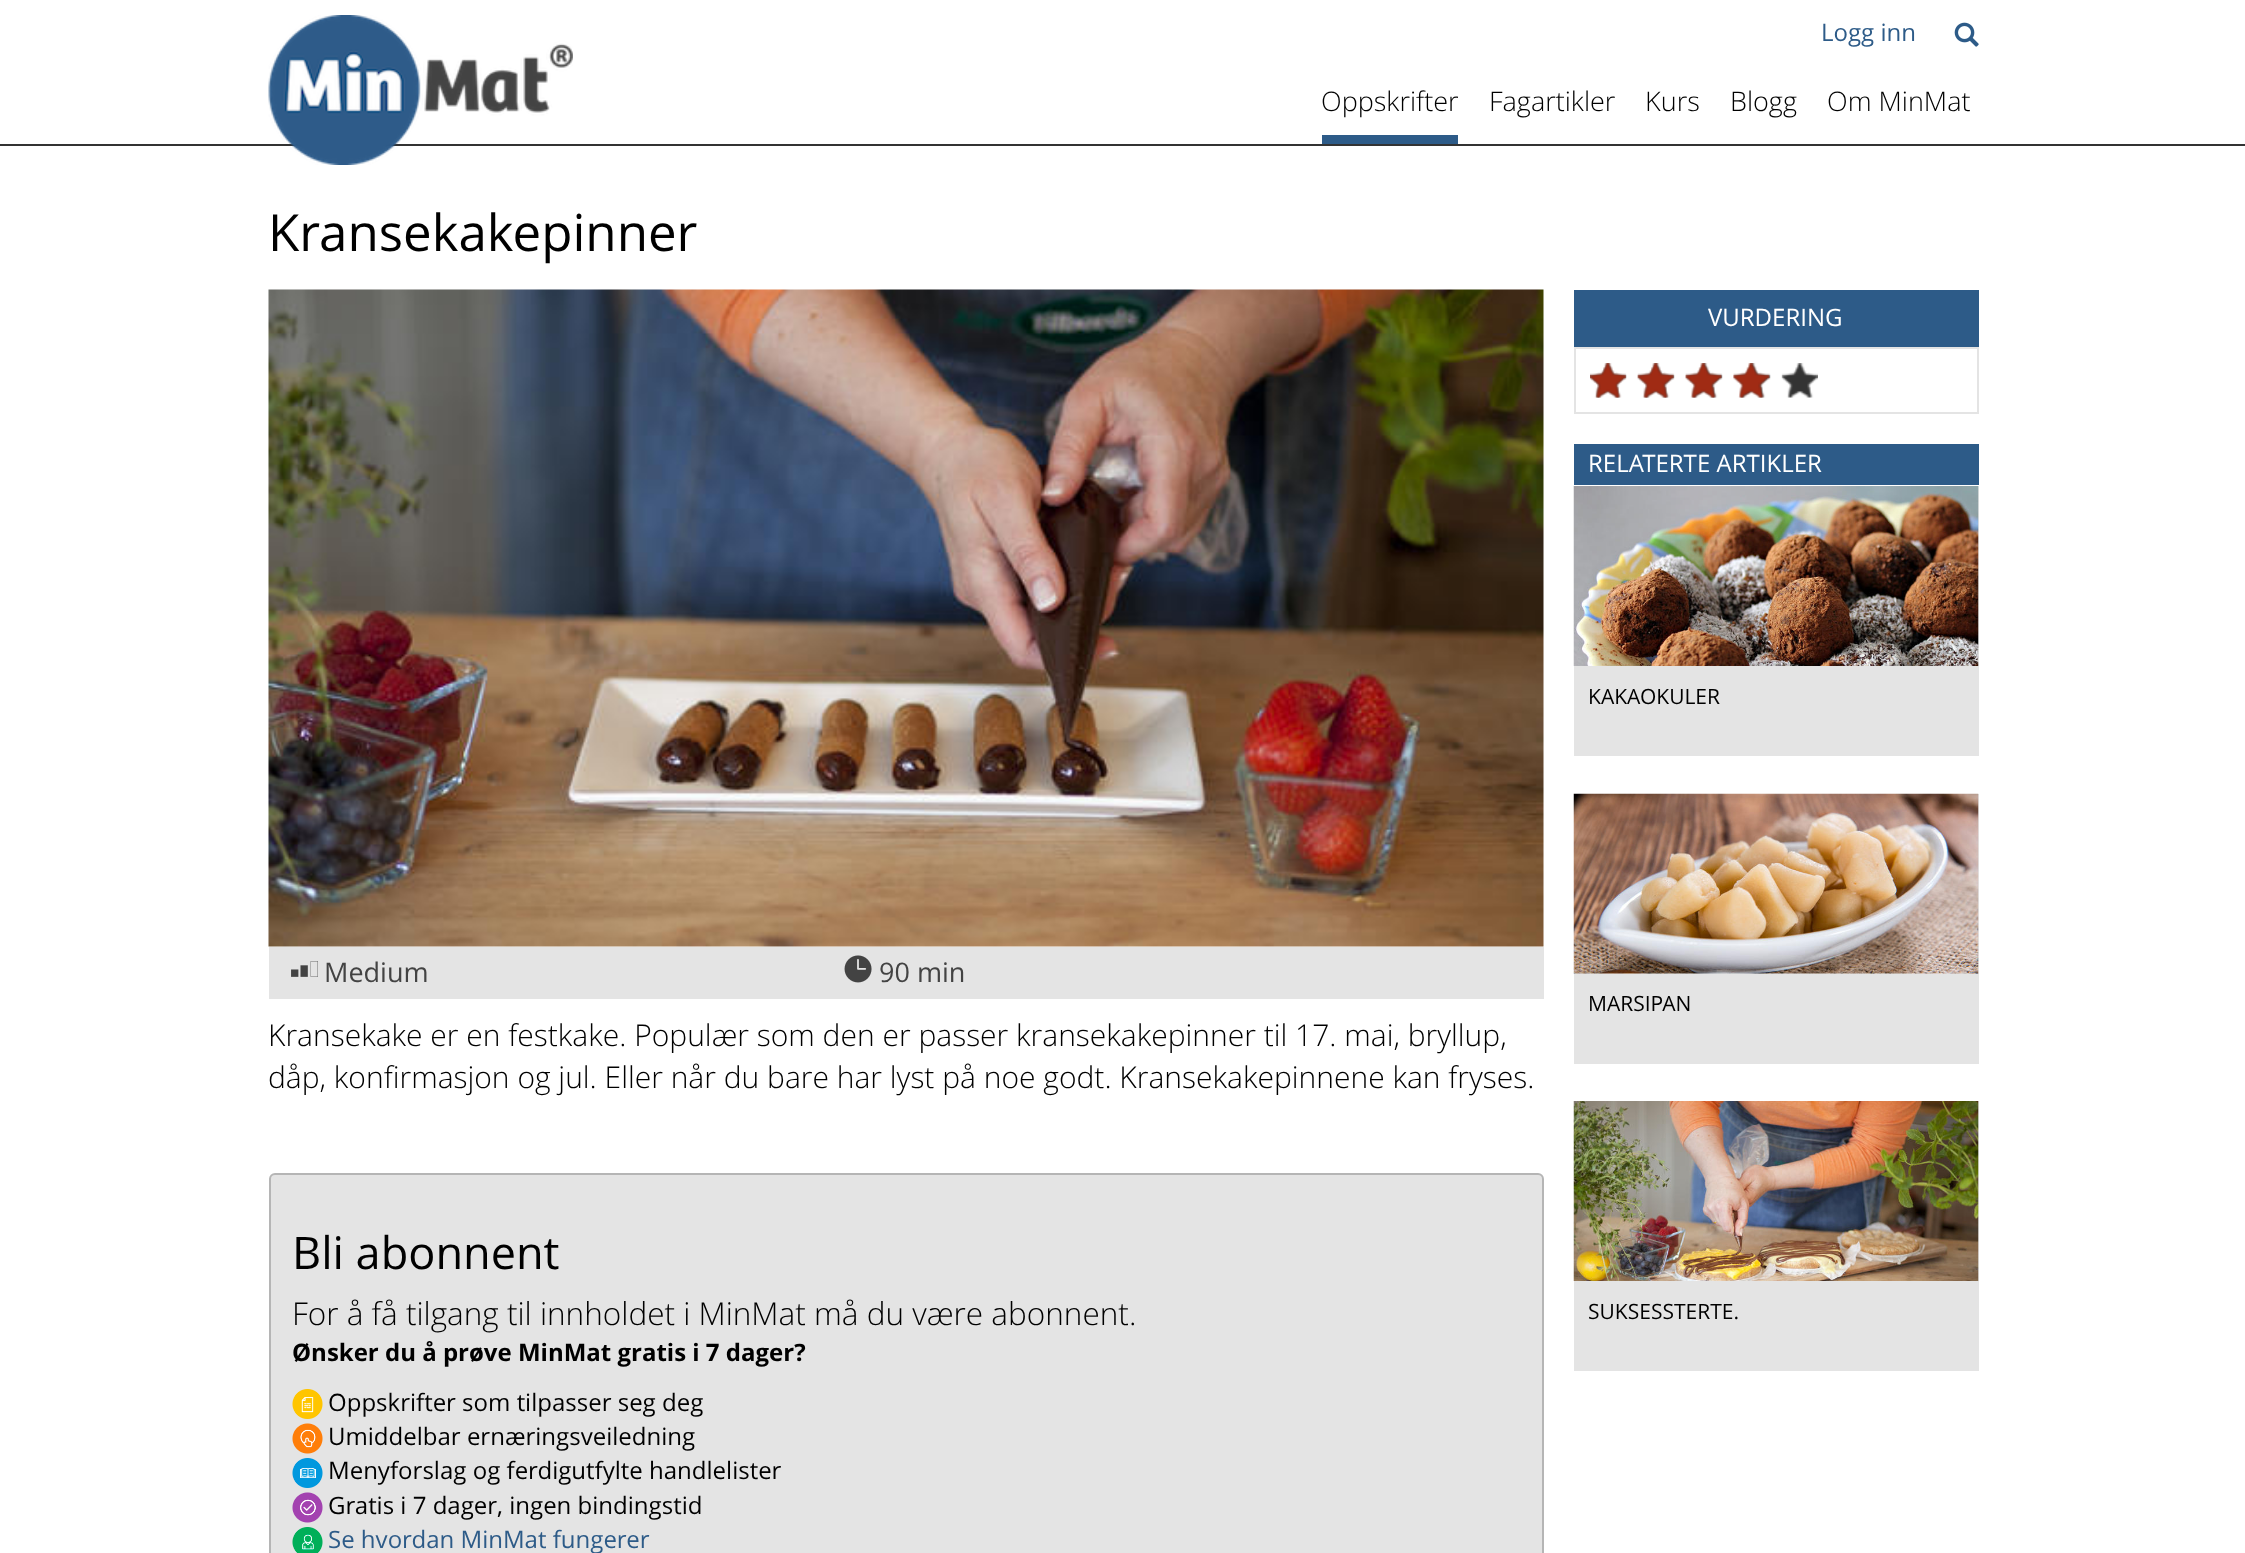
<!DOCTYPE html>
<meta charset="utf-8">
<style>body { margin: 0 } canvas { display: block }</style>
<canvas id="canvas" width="2245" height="1553"></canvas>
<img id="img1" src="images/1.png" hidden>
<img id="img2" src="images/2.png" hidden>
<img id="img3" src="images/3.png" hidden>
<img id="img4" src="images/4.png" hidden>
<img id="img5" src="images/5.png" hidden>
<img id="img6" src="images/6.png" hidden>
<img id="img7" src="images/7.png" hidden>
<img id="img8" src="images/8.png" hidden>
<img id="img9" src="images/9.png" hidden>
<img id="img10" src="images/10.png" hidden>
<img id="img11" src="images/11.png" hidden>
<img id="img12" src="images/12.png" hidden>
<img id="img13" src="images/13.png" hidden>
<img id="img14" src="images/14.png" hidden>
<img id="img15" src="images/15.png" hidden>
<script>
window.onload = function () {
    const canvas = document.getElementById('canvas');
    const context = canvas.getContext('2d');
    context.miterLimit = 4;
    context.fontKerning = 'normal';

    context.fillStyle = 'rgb(255, 255, 255)';
    context.fillRect(0, 0, 2245, 1553);
    context.fillStyle = 'rgb(51, 51, 51)';
    context.fillRect(0, 144, 2245, 2);
    context.drawImage(document.getElementById('img1'), 268, 15, 305, 150);
    context.drawImage(document.getElementById('img2'), 1954, 22, 25, 25);
    context.fillStyle = 'rgb(45, 91, 136)';
    context.fillRect(1322, 135, 136, 9);
    context.drawImage(document.getElementById('img3'), 268, 289, 1276, 658);
    context.fillStyle = 'rgb(228, 228, 228)';
    context.fillRect(269, 947, 1275, 52);
    context.drawImage(document.getElementById('img4'), 291, 961, 27, 16);
    context.drawImage(document.getElementById('img5'), 844, 955, 28, 28);
    context.beginPath();
    context.roundRect(270, 1174, 1273, 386, 5);
    context.fill();
    context.strokeStyle = 'rgb(181, 181, 181)';
    context.lineWidth = 2;
    context.stroke();
    context.drawImage(document.getElementById('img6'), 292, 1389, 31, 30);
    context.drawImage(document.getElementById('img7'), 292, 1423, 31, 31);
    context.drawImage(document.getElementById('img8'), 292, 1458, 31, 30);
    context.drawImage(document.getElementById('img9'), 292, 1492, 31, 31);
    context.drawImage(document.getElementById('img10'), 292, 1527, 31, 26);
    context.fillStyle = 'rgb(45, 91, 136)';
    context.fillRect(1574, 290, 405, 57);
    context.strokeStyle = 'rgb(228, 228, 228)';
    context.strokeRect(1575, 348, 403, 65);
    context.drawImage(document.getElementById('img11'), 1590, 363, 228, 35);
    context.drawImage(document.getElementById('img12'), 1590, 363, 180, 35);
    context.fillRect(1574, 444, 405, 41);
    context.fillStyle = 'rgb(228, 228, 228)';
    context.fillRect(1574, 486, 405, 270);
    context.drawImage(document.getElementById('img13'), 1573, 486, 406, 180);
    context.fillRect(1574, 794, 405, 270);
    context.drawImage(document.getElementById('img14'), 1573, 793, 406, 181);
    context.fillRect(1574, 1101, 405, 270);
    context.drawImage(document.getElementById('img15'), 1573, 1101, 406, 180);
    context.font = '24px Open Sans';
    context.fillStyle = 'rgb(45, 91, 136)';
    context.fillText('Logg inn', 1821, 41);
    context.font = '300 27px Open Sans';
    context.fillStyle = 'rgb(0, 0, 0)';
    context.fillText('Oppskrifter', 1321, 111);
    context.fillText('Fagartikler', 1489, 111);
    context.fillText('Kurs', 1645, 111);
    context.fillText('Blogg', 1730, 111);
    context.fillText('Om MinMat', 1827, 111);
    context.font = '51px Open Sans';
    context.fillText('Kransekakepinner', 268, 251);
    context.font = '27px Open Sans';
    context.fillStyle = 'rgb(67, 67, 67)';
    context.fillText('Medium', 324, 982);
    context.fillText('90 min', 879, 982);
    context.font = '300 30px Open Sans';
    context.fillStyle = 'rgb(0, 0, 0)';
    context.fillText('Kransekake er en festkake. Populær som den er passer kransekakepinner til 17. mai, bryllup,', 268, 1046);
    context.fillText('dåp, konfirmasjon og jul. Eller når du bare har lyst på noe godt. Kransekakepinnene kan fryses.', 268, 1088);
    context.font = '45px Open Sans';
    context.fillText('Bli abonnent', 292, 1269);
    context.font = '300 31.5px Open Sans';
    context.fillText('For å få tilgang til innholdet i MinMat må du være abonnent.', 292, 1325);
    context.font = 'bold 24px Open Sans';
    context.fillText('Ønsker du å prøve MinMat gratis i 7 dager?', 292, 1361);
    context.font = '24px Open Sans';
    context.fillText('Oppskrifter som tilpasser seg deg', 328, 1411);
    context.fillText('Umiddelbar ernæringsveiledning', 328, 1445);
    context.fillText('Menyforslag og ferdigutfylte handlelister', 328, 1479);
    context.fillText('Gratis i 7 dager, ingen bindingstid', 328, 1514);
    context.fillStyle = 'rgb(45, 91, 136)';
    context.fillText('Se hvordan MinMat fungerer', 328, 1548);
    context.fillStyle = 'rgb(255, 255, 255)';
    context.fillText('VURDERING', 1708, 326);
    context.fillText('RELATERTE ARTIKLER', 1588, 472);
    context.font = '21px Open Sans';
    context.fillStyle = 'rgb(0, 0, 0)';
    context.fillText('KAKAOKULER', 1588, 704);
    context.fillText('MARSIPAN', 1588, 1011);
    context.fillText('SUKSESSTERTE.', 1588, 1319);
};
</script>
